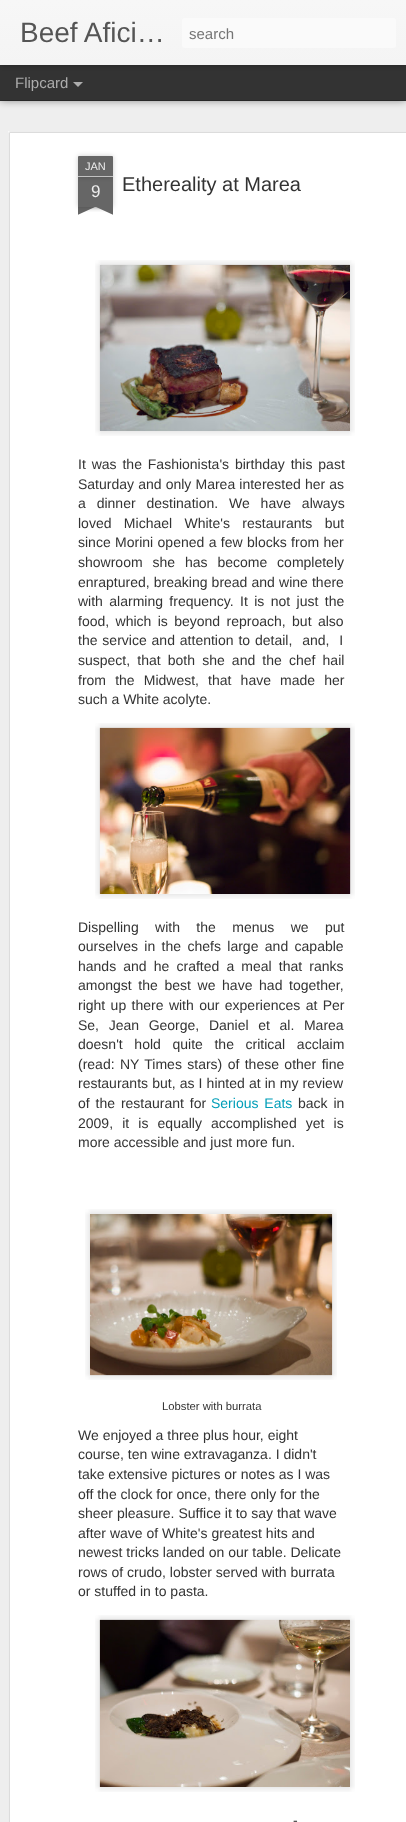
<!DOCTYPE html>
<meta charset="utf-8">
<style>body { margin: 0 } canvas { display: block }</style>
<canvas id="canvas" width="406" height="1822"></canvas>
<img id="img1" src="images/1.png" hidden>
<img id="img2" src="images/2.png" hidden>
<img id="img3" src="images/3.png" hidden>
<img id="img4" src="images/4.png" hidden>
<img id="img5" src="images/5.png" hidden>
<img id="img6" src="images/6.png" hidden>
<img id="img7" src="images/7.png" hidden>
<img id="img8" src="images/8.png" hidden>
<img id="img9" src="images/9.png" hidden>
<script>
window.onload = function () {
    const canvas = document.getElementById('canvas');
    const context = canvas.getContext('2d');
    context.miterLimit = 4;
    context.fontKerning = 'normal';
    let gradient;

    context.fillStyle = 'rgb(51, 51, 51)';
    context.fillRect(0, 0, 406, 1822);
    context.fillStyle = 'rgb(238, 238, 238)';
    context.fillRect(0, 101, 406, 1721);
    context.fillStyle = 'rgba(0, 0, 0, 0.5)';
    context.filter = 'blur(4px)';
    context.beginPath();
    context.rect(0, 65, 406, 35);
    context.fill();
    context.filter = 'none';
    context.fillStyle = 'rgb(51, 51, 51)';
    context.fillRect(0, 65, 406, 35);
    context.fillStyle = 'rgba(0, 0, 0, 0.3)';
    context.filter = 'blur(2.5px)';
    context.beginPath();
    context.rect(0, 0, 406, 65);
    context.fill();
    context.filter = 'none';
    gradient = context.createLinearGradient(0, 0, 0, 65);
    gradient.addColorStop(0, 'rgb(247, 247, 247)');
    gradient.addColorStop(1, 'rgb(244, 244, 244)');
    context.fillStyle = gradient;
    context.fillRect(0, 0, 406, 65);
    context.fillStyle = 'rgb(250, 250, 250)';
    context.beginPath();
    context.roundRect(182, 18, 214, 30, 3);
    context.fill();
    context.fillStyle = 'rgb(173, 173, 173)';
    context.beginPath();
    context.moveTo(73, 82);
    context.lineTo(83, 82);
    context.lineTo(78, 87);
    context.closePath();
    context.fill();
    context.fillStyle = 'rgb(255, 255, 255)';
    context.fillRect(8, 131, 398, 1691);
    context.drawImage(document.getElementById('img1'), 8, 131, 398, 1691);
    context.fillStyle = 'rgba(0, 0, 0, 0.2)';
    context.filter = 'blur(2.5px)';
    context.beginPath();
    context.rect(78, 177, 35, 30);
    context.fill();
    context.filter = 'none';
    context.fillStyle = 'rgb(102, 102, 102)';
    context.fillRect(78, 177, 35, 30);
    context.fillStyle = 'rgba(0, 0, 0, 0.2)';
    context.filter = 'blur(2.5px)';
    context.beginPath();
    context.roundRect(78, 156, 35, 21, 1);
    context.fill();
    context.filter = 'none';
    context.fillStyle = 'rgb(102, 102, 102)';
    context.beginPath();
    context.roundRect(78, 156, 35, 21, [1, 1, 0, 0]);
    context.fill();
    context.fillStyle = 'rgb(194, 194, 194)';
    context.fillRect(78, 176, 35, 1);
    context.save();
    context.beginPath();
    context.rect(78, 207, 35, 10);
    context.clip();
    context.fillStyle = 'rgba(0, 0, 0, 0.2)';
    context.filter = 'blur(2.5px)';
    context.beginPath();
    context.rect(69, 197, 50, 10);
    context.fill();
    context.filter = 'none';
    context.restore();
    context.save();
    context.beginPath();
    context.rect(78, 207, 35, 10);
    context.clip();
    context.fillStyle = 'rgb(102, 102, 102)';
    context.beginPath();
    context.moveTo(69, 208);
    context.lineTo(115, 187);
    context.lineTo(119, 196);
    context.lineTo(73, 217);
    context.closePath();
    context.fill();
    context.restore();
    context.save();
    context.beginPath();
    context.rect(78, 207, 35, 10);
    context.clip();
    context.fillStyle = 'rgba(0, 0, 0, 0.2)';
    context.filter = 'blur(2.5px)';
    context.beginPath();
    context.rect(72, 197, 50, 10);
    context.fill();
    context.filter = 'none';
    context.restore();
    context.save();
    context.beginPath();
    context.rect(78, 207, 35, 10);
    context.clip();
    context.fillStyle = 'rgb(102, 102, 102)';
    context.beginPath();
    context.moveTo(76, 187);
    context.lineTo(122, 208);
    context.lineTo(118, 217);
    context.lineTo(72, 196);
    context.closePath();
    context.fill();
    context.restore();
    context.drawImage(document.getElementById('img2'), 95, 260, 260, 176);
    context.drawImage(document.getElementById('img3'), 99, 264, 251, 167);
    context.drawImage(document.getElementById('img4'), 95, 723, 260, 176);
    context.drawImage(document.getElementById('img5'), 99, 727, 252, 167);
    context.drawImage(document.getElementById('img6'), 85, 1209, 252, 171);
    context.drawImage(document.getElementById('img7'), 90, 1214, 243, 162);
    context.drawImage(document.getElementById('img8'), 95, 1615, 260, 177);
    context.drawImage(document.getElementById('img9'), 99, 1619, 251, 168);
    context.font = '28px Liberation Sans';
    context.fillStyle = 'rgb(85, 85, 85)';
    context.fillText('Beef Afici…', 20, 42);
    context.font = '15px Liberation Sans';
    context.fillStyle = 'rgb(117, 117, 117)';
    context.fillText('search', 189, 39);
    context.fillStyle = 'rgb(173, 173, 173)';
    context.fillText('Flipcard', 15, 88);
    context.font = '11px Liberation Sans';
    context.fillStyle = 'rgb(238, 238, 238)';
    context.fillText('JAN', 85, 170);
    context.font = '17px Liberation Sans';
    context.fillText('9', 91, 197);
    context.font = '20px Liberation Sans';
    context.fillStyle = 'rgb(51, 51, 51)';
    context.fillText('Ethereality at Marea', 122, 191);
    context.wordSpacing = '2px';
    context.font = '14px Liberation Sans';
    context.fillText('It was the Fashionista\'s birthday this past', 78, 469);
    context.wordSpacing = '0.25px';
    context.fillText('Saturday and only Marea interested her as', 78, 489);
    context.wordSpacing = '7px';
    context.fillText('a dinner destination. We have always', 78, 508);
    context.wordSpacing = '8.5px';
    context.fillText('loved Michael White\'s restaurants but', 78, 528);
    context.wordSpacing = '0.5px';
    context.fillText('since Morini opened a few blocks from her', 78, 547);
    context.wordSpacing = '6px';
    context.fillText('showroom she has become completely', 78, 567);
    context.wordSpacing = '0.25px';
    context.fillText('enraptured, breaking bread and wine there', 78, 587);
    context.wordSpacing = '2.5px';
    context.fillText('with alarming frequency. It is not just the', 78, 606);
    context.fillText('food, which is beyond reproach, but also', 78, 626);
    context.wordSpacing = '1px';
    context.fillText('the service and attention to detail,  and,  I', 78, 645);
    context.wordSpacing = '3.25px';
    context.fillText('suspect, that both she and the chef hail', 78, 665);
    context.wordSpacing = '5.25px';
    context.fillText('from the Midwest, that have made her', 78, 685);
    context.wordSpacing = '0px';
    context.fillText('such a White acolyte.', 78, 704);
    context.wordSpacing = '12.5px';
    context.fillText('Dispelling with the menus we put', 78, 932);
    context.wordSpacing = '2.5px';
    context.fillText('ourselves in the chefs large and capable', 78, 951);
    context.wordSpacing = '3.25px';
    context.fillText('hands and he crafted a meal that ranks', 78, 971);
    context.wordSpacing = '2.75px';
    context.fillText('amongst the best we have had together,', 78, 990);
    context.wordSpacing = '1.5px';
    context.fillText('right up there with our experiences at Per', 78, 1010);
    context.wordSpacing = '5.75px';
    context.fillText('Se, Jean George, Daniel et al. Marea', 78, 1030);
    context.wordSpacing = '7.75px';
    context.fillText('doesn\'t hold quite the critical acclaim', 78, 1049);
    context.wordSpacing = '1.5px';
    context.fillText('(read: NY Times stars) of these other fine', 78, 1069);
    context.wordSpacing = '0.25px';
    context.fillText('restaurants but, as I hinted at in my review', 78, 1088);
    context.wordSpacing = '2px';
    context.fillText('of the restaurant for', 78, 1108);
    context.fillStyle = 'rgb(0, 158, 184)';
    context.fillText('Serious Eats', 211, 1108);
    context.fillStyle = 'rgb(51, 51, 51)';
    context.fillText('back in', 298, 1108);
    context.wordSpacing = '5.25px';
    context.fillText('2009, it is equally accomplished yet is', 78, 1128);
    context.wordSpacing = '0px';
    context.fillText('more accessible and just more fun.', 78, 1147);
    context.font = '11.25px Liberation Sans';
    context.fillText('Lobster with burrata', 162, 1410);
    context.font = '14px Liberation Sans';
    context.fillText('We enjoyed a three plus hour, eight', 78, 1440);
    context.fillText('course, ten wine extravaganza. I didn\'t', 78, 1459);
    context.fillText('take extensive pictures or notes as I was', 78, 1479);
    context.fillText('off the clock for once, there only for the', 78, 1499);
    context.fillText('sheer pleasure. Suffice it to say that wave', 78, 1518);
    context.fillText('after wave of White\'s greatest hits and', 78, 1538);
    context.fillText('newest tricks landed on our table. Delicate', 78, 1557);
    context.fillText('rows of crudo, lobster served with burrata', 78, 1577);
    context.fillText('or stuffed in to pasta.', 78, 1596);
    context.fillText('-', 293, 1825);
};
</script>
